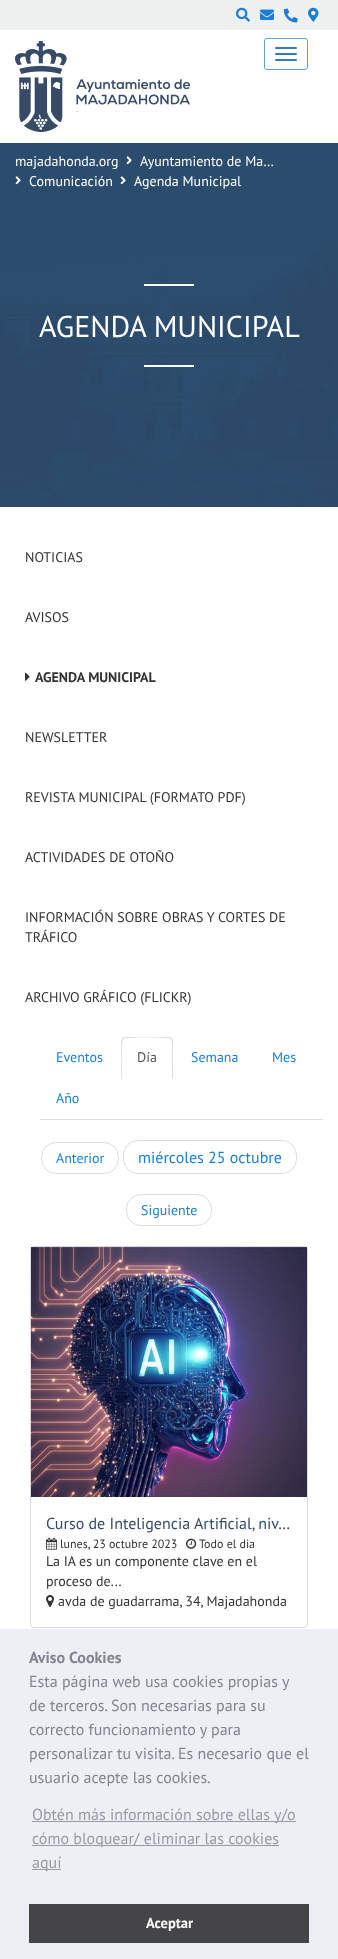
<!DOCTYPE html>
<meta charset="utf-8">
<style>body { margin: 0 } canvas { display: block }</style>
<canvas id="canvas" width="338" height="1959"></canvas>
<img id="img1" src="images/1.png" hidden>
<img id="img2" src="images/2.png" hidden>
<img id="img3" src="images/3.png" hidden>
<img id="img4" src="images/4.png" hidden>
<img id="img5" src="images/5.png" hidden>
<img id="img6" src="images/8.png" hidden>
<img id="img7" src="images/6.png" hidden>
<img id="img8" src="images/7.png" hidden>
<img id="img9" src="images/9.png" hidden>
<img id="img10" src="images/10.png" hidden>
<img id="img11" src="images/11.png" hidden>
<img id="img12" src="images/12.png" hidden>
<img id="img13" src="images/13.png" hidden>
<script>
window.onload = function () {
    const canvas = document.getElementById('canvas');
    const context = canvas.getContext('2d');
    context.miterLimit = 4;
    context.fontKerning = 'normal';

    context.fillStyle = 'rgb(237, 241, 240)';
    context.fillRect(0, 0, 338, 1959);
    context.drawImage(document.getElementById('img1'), 236, 7, 14, 15);
    context.drawImage(document.getElementById('img2'), 260, 9, 14, 11);
    context.drawImage(document.getElementById('img3'), 283, 8, 15, 15);
    context.drawImage(document.getElementById('img4'), 308, 7, 11, 15);
    context.fillStyle = 'rgb(255, 255, 255)';
    context.fillRect(0, 30, 338, 113);
    context.drawImage(document.getElementById('img5'), 15, 41, 175, 91);
    context.beginPath();
    context.roundRect(264.5, 38.5, 43, 31, 2.5);
    context.strokeStyle = 'rgb(91, 165, 207)';
    context.stroke();
    context.fillStyle = 'rgb(51, 122, 183)';
    context.beginPath();
    context.roundRect(275, 47, 22, 2, 1);
    context.fill();
    context.beginPath();
    context.roundRect(275, 53, 22, 2, 1);
    context.fill();
    context.beginPath();
    context.roundRect(275, 59, 22, 2, 1);
    context.fill();
    context.fillStyle = 'rgb(255, 255, 255)';
    context.fillRect(0, 507, 338, 1122);
    context.drawImage(document.getElementById('img6'), 0, 143, 338, 364);
    context.drawImage(document.getElementById('img7'), 126, 156, 6, 9);
    context.drawImage(document.getElementById('img8'), 15, 176, 6, 9);
    context.drawImage(document.getElementById('img8'), 120, 176, 6, 9);
    context.fillRect(144, 284, 50, 2);
    context.fillRect(144, 365, 50, 2);
    context.drawImage(document.getElementById('img9'), 25, 672, 5, 9);
    context.fillStyle = 'rgb(221, 221, 221)';
    context.fillRect(40, 1119, 283, 1);
    context.beginPath();
    context.moveTo(125, 1037);
    context.lineTo(122, 1038);
    context.lineTo(123, 1039);
    context.bezierCurveTo(124, 1037, 170, 1037, 171, 1039);
    context.lineTo(172, 1038);
    context.lineTo(169, 1037);
    context.closePath();
    context.fill();
    context.beginPath();
    context.moveTo(173, 1079);
    context.lineTo(173, 1041);
    context.bezierCurveTo(173, 1040, 172, 1039, 172, 1038);
    context.lineTo(171, 1039);
    context.bezierCurveTo(173, 1041, 172, 1073, 172, 1078);
    context.closePath();
    context.moveTo(121, 1079);
    context.lineTo(122, 1078);
    context.bezierCurveTo(122, 1073, 121, 1041, 123, 1039);
    context.lineTo(122, 1038);
    context.lineTo(121, 1041);
    context.closePath();
    context.fill();
    context.beginPath();
    context.roundRect(41.5, 1142.5, 77, 31, 14.5);
    context.strokeStyle = 'rgb(221, 221, 221)';
    context.stroke();
    context.beginPath();
    context.roundRect(123.5, 1140.5, 173, 33, 14.5);
    context.stroke();
    context.beginPath();
    context.roundRect(126.5, 1194.5, 85, 31, 14.5);
    context.stroke();
    context.beginPath();
    context.roundRect(30.5, 1246.5, 277, 381, 3.5);
    context.strokeStyle = 'rgb(217, 217, 217)';
    context.stroke();
    context.drawImage(document.getElementById('img10'), 31, 1247, 276, 250);
    context.drawImage(document.getElementById('img11'), 46, 1537, 12, 13);
    context.drawImage(document.getElementById('img12'), 186, 1538, 11, 11);
    context.drawImage(document.getElementById('img13'), 46, 1595, 8, 12);
    context.fillStyle = 'rgb(237, 239, 245)';
    context.fillRect(0, 1629, 338, 330);
    context.fillStyle = 'rgb(152, 153, 165)';
    context.fillRect(32, 1821, 264, 1);
    context.fillRect(32, 1845, 247, 1);
    context.fillRect(32, 1869, 29, 1);
    context.fillStyle = 'rgb(69, 69, 72)';
    context.fillRect(29, 1904, 280, 39);
    context.font = '14px PT Sans';
    context.fillStyle = 'rgb(255, 255, 255)';
    context.fillText('majadahonda.org', 15, 166);
    context.fillText('Ayuntamiento de Ma…', 140, 166);
    context.fillText('Comunicación', 29, 186);
    context.fillText('Agenda Municipal', 134, 186);
    context.font = '30px PT Sans';
    context.fillText('AGENDA MUNICIPAL', 39, 337);
    context.font = '14px PT Sans';
    context.fillStyle = 'rgb(51, 51, 51)';
    context.fillText('NOTICIAS', 25, 562);
    context.fillText('AVISOS', 25, 622);
    context.font = 'bold 14px PT Sans';
    context.fillText('AGENDA MUNICIPAL', 35, 682);
    context.font = '14px PT Sans';
    context.fillText('NEWSLETTER', 25, 742);
    context.fillText('REVISTA MUNICIPAL (FORMATO PDF)', 25, 802);
    context.fillText('ACTIVIDADES DE OTOÑO', 25, 862);
    context.fillText('INFORMACIÓN SOBRE OBRAS Y CORTES DE', 25, 922);
    context.fillText('TRÁFICO', 25, 942);
    context.fillText('ARCHIVO GRÁFICO (FLICKR)', 25, 1002);
    context.fillStyle = 'rgb(26, 126, 215)';
    context.fillText('Eventos', 56, 1062);
    context.fillStyle = 'rgb(85, 85, 85)';
    context.fillText('Día', 137, 1062);
    context.fillStyle = 'rgb(26, 126, 215)';
    context.fillText('Semana', 191, 1062);
    context.fillText('Mes', 272, 1062);
    context.fillText('Año', 56, 1103);
    context.fillText('Anterior', 56, 1163);
    context.font = '16px PT Sans';
    context.fillText('miércoles 25 octubre', 138, 1163);
    context.font = '14px PT Sans';
    context.fillText('Siguiente', 141, 1215);
    context.font = '16px PT Sans';
    context.fillStyle = 'rgb(55, 75, 103)';
    context.fillText('Curso de Inteligencia Artificial, niv…', 46, 1529);
    context.font = '12px PT Sans';
    context.fillStyle = 'rgb(51, 51, 51)';
    context.fillText('lunes, 23 octubre 2023', 60, 1548);
    context.fillText('Todo el dia', 199, 1548);
    context.font = '14px PT Sans';
    context.fillText('La IA es un componente clave en el', 46, 1566);
    context.fillText('proceso de...', 46, 1586);
    context.fillText('avda de guadarrama, 34, Majadahonda', 58, 1606);
    context.font = 'bold 16px PT Sans';
    context.fillStyle = 'rgb(131, 131, 145)';
    context.fillText('Aviso Cookies', 29, 1663);
    context.font = '16px PT Sans';
    context.fillText('Esta página web usa cookies propias y', 29, 1687);
    context.fillText('de terceros. Son necesarias para su', 29, 1711);
    context.fillText('correcto funcionamiento y para', 29, 1735);
    context.fillText('personalizar tu visita. Es necesario que el', 29, 1759);
    context.fillText('usuario acepte las cookies.', 29, 1783);
    context.fillStyle = 'rgb(152, 153, 165)';
    context.fillText('Obtén más información sobre ellas y/o', 32, 1820);
    context.fillText('cómo bloquear/ eliminar las cookies', 32, 1844);
    context.fillText('aquí', 32, 1868);
    context.font = 'bold 14.5px PT Sans';
    context.fillStyle = 'rgb(255, 255, 255)';
    context.fillText('Aceptar', 146, 1928);
};
</script>
